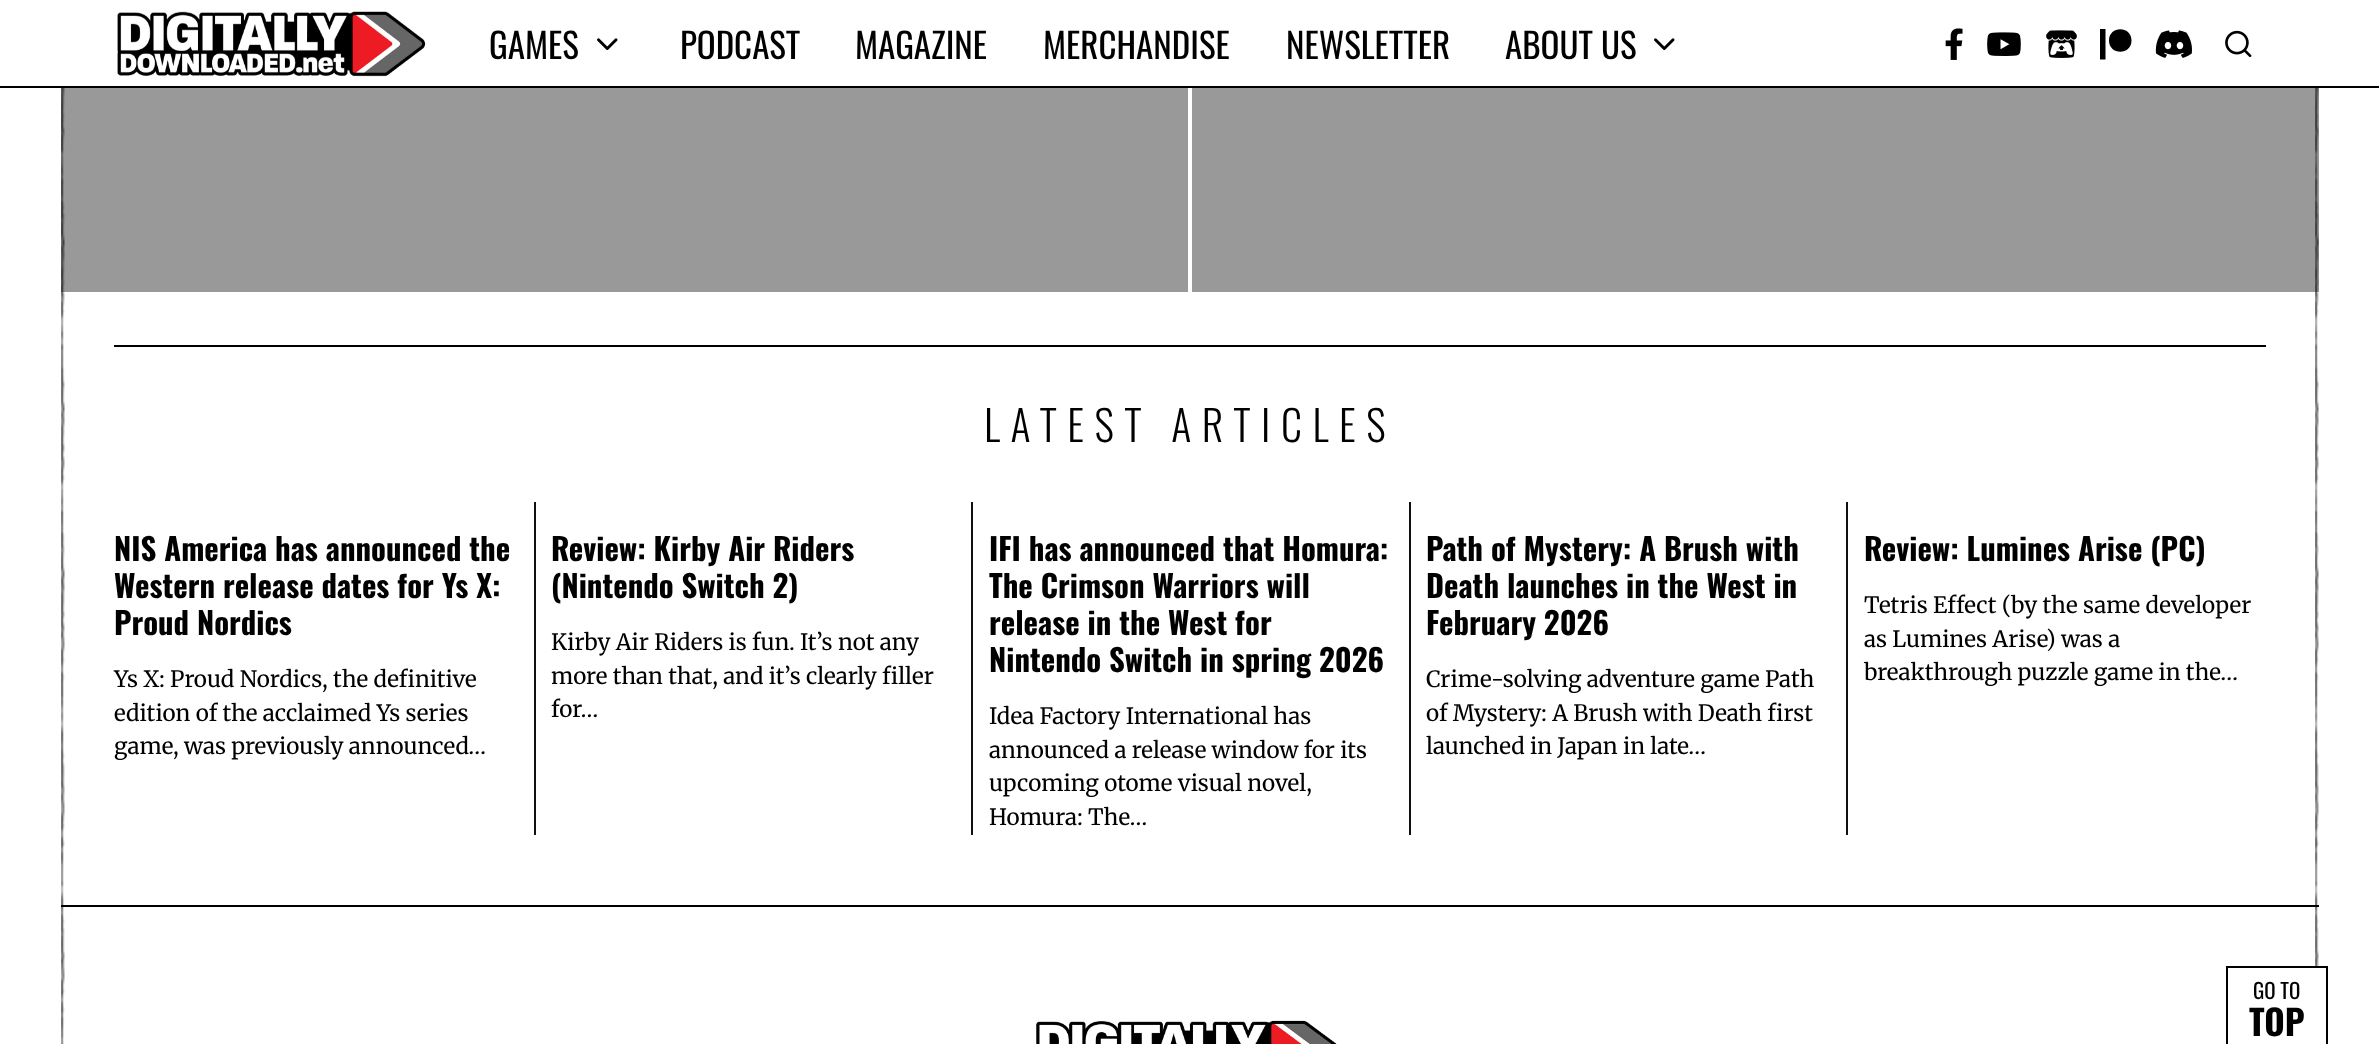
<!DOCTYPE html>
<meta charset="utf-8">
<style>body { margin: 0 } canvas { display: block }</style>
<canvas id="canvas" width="2379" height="1044"></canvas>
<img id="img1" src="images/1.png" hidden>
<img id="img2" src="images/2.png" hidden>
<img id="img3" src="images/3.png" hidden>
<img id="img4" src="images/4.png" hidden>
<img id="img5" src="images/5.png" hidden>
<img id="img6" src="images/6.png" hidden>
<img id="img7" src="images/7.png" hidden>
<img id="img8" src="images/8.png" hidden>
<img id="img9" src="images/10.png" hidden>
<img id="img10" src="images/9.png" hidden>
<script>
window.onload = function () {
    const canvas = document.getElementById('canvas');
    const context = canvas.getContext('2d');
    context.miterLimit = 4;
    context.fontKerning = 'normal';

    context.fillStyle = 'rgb(255, 255, 255)';
    context.fillRect(0, 0, 2379, 1044);
    context.drawImage(document.getElementById('img1'), 61, 88, 4, 956);
    context.fillStyle = 'rgb(0, 0, 0)';
    context.fillRect(0, 86, 2379, 2);
    context.drawImage(document.getElementById('img2'), 117, 11, 309, 66);
    context.drawImage(document.getElementById('img3'), 597, 38, 21, 12);
    context.drawImage(document.getElementById('img3'), 1654, 38, 21, 12);
    context.drawImage(document.getElementById('img4'), 1945, 28, 18, 32);
    context.drawImage(document.getElementById('img5'), 1987, 32, 34, 24);
    context.drawImage(document.getElementById('img6'), 2046, 30, 31, 28);
    context.beginPath();
    context.moveTo(2131.5, 40.5);
    context.bezierCurveTo(2131.5, 55.5, 2109, 55.5, 2109, 40.5);
    context.bezierCurveTo(2109, 25.5, 2131.5, 25.5, 2131.5, 40.5);
    context.closePath();
    context.moveTo(2100, 59.5);
    context.lineTo(2100, 29);
    context.lineTo(2105.5, 29);
    context.lineTo(2105.5, 59.5);
    context.closePath();
    context.fill();
    context.drawImage(document.getElementById('img7'), 2155, 30, 37, 28);
    context.drawImage(document.getElementById('img8'), 2225, 30, 27, 28);
    context.fillStyle = 'rgba(0, 0, 0, 0.4)';
    context.fillRect(61, 88, 1127, 204);
    context.drawImage(document.getElementById('img9'), 2315, 88, 4, 878);
    context.fillRect(1192, 88, 1127, 204);
    context.fillStyle = 'rgb(0, 0, 0)';
    context.fillRect(114, 345, 2152, 2);
    context.fillStyle = 'rgb(17, 17, 17)';
    context.fillRect(534, 502, 2, 333);
    context.fillRect(971, 502, 2, 333);
    context.fillRect(1409, 502, 2, 333);
    context.fillRect(1846, 502, 2, 333);
    context.fillStyle = 'rgb(0, 0, 0)';
    context.fillRect(61, 905, 2258, 2);
    context.drawImage(document.getElementById('img10'), 1036, 1020, 301, 24);
    context.fillRect(2226, 966, 102, 2);
    context.fillRect(2326, 966, 2, 78);
    context.fillRect(2226, 966, 2, 78);
    context.font = '35px Oswald';
    context.fillText('GAMES', 489, 59);
    context.fillText('PODCAST', 680, 59);
    context.fillText('MAGAZINE', 855, 59);
    context.fillText('MERCHANDISE', 1043, 59);
    context.fillText('NEWSLETTER', 1286, 59);
    context.fillText('ABOUT US', 1505, 59);
    context.letterSpacing = '10.5px';
    context.font = '300 42px Oswald';
    context.fillText('LATEST ARTICLES', 984, 442);
    context.letterSpacing = '0px';
    context.font = 'bold 30.75px Oswald';
    context.fillText('NIS America has announced the', 114, 561);
    context.fillText('Western release dates for Ys X:', 114, 598);
    context.fillText('Proud Nordics', 114, 635);
    context.font = '22.4px Merriweather';
    context.fillText('Ys X: Proud Nordics, the definitive', 114, 687);
    context.fillText('edition of the acclaimed Ys series', 114, 721);
    context.fillText('game, was previously announced…', 114, 754);
    context.font = 'bold 30.75px Oswald';
    context.fillText('Review: Lumines Arise (PC)', 1864, 561);
    context.font = '22.4px Merriweather';
    context.fillText('Tetris Effect (by the same developer', 1864, 613);
    context.fillText('as Lumines Arise) was a', 1864, 647);
    context.fillText('breakthrough puzzle game in the…', 1864, 680);
    context.font = 'bold 30.75px Oswald';
    context.fillText('Review: Kirby Air Riders', 551, 561);
    context.fillText('(Nintendo Switch 2)', 551, 598);
    context.font = '22.4px Merriweather';
    context.fillText('Kirby Air Riders is fun. It’s not any', 551, 650);
    context.fillText('more than that, and it’s clearly filler', 551, 684);
    context.fillText('for…', 551, 717);
    context.font = 'bold 30.75px Oswald';
    context.fillText('IFI has announced that Homura:', 989, 561);
    context.fillText('The Crimson Warriors will', 989, 598);
    context.fillText('release in the West for', 989, 635);
    context.fillText('Nintendo Switch in spring 2026', 989, 672);
    context.font = '22.4px Merriweather';
    context.fillText('Idea Factory International has', 989, 724);
    context.fillText('announced a release window for its', 989, 758);
    context.fillText('upcoming otome visual novel,', 989, 791);
    context.fillText('Homura: The…', 989, 825);
    context.font = 'bold 30.75px Oswald';
    context.fillText('Path of Mystery: A Brush with', 1426, 561);
    context.fillText('Death launches in the West in', 1426, 598);
    context.fillText('February 2026', 1426, 635);
    context.font = '22.4px Merriweather';
    context.fillText('Crime-solving adventure game Path', 1426, 687);
    context.fillText('of Mystery: A Brush with Death first', 1426, 721);
    context.fillText('launched in Japan in late…', 1426, 754);
    context.font = '21px Oswald';
    context.fillText('GO TO', 2253, 999);
    context.font = 'bold 35px Oswald';
    context.fillText('TOP', 2249, 1036);
};
</script>
